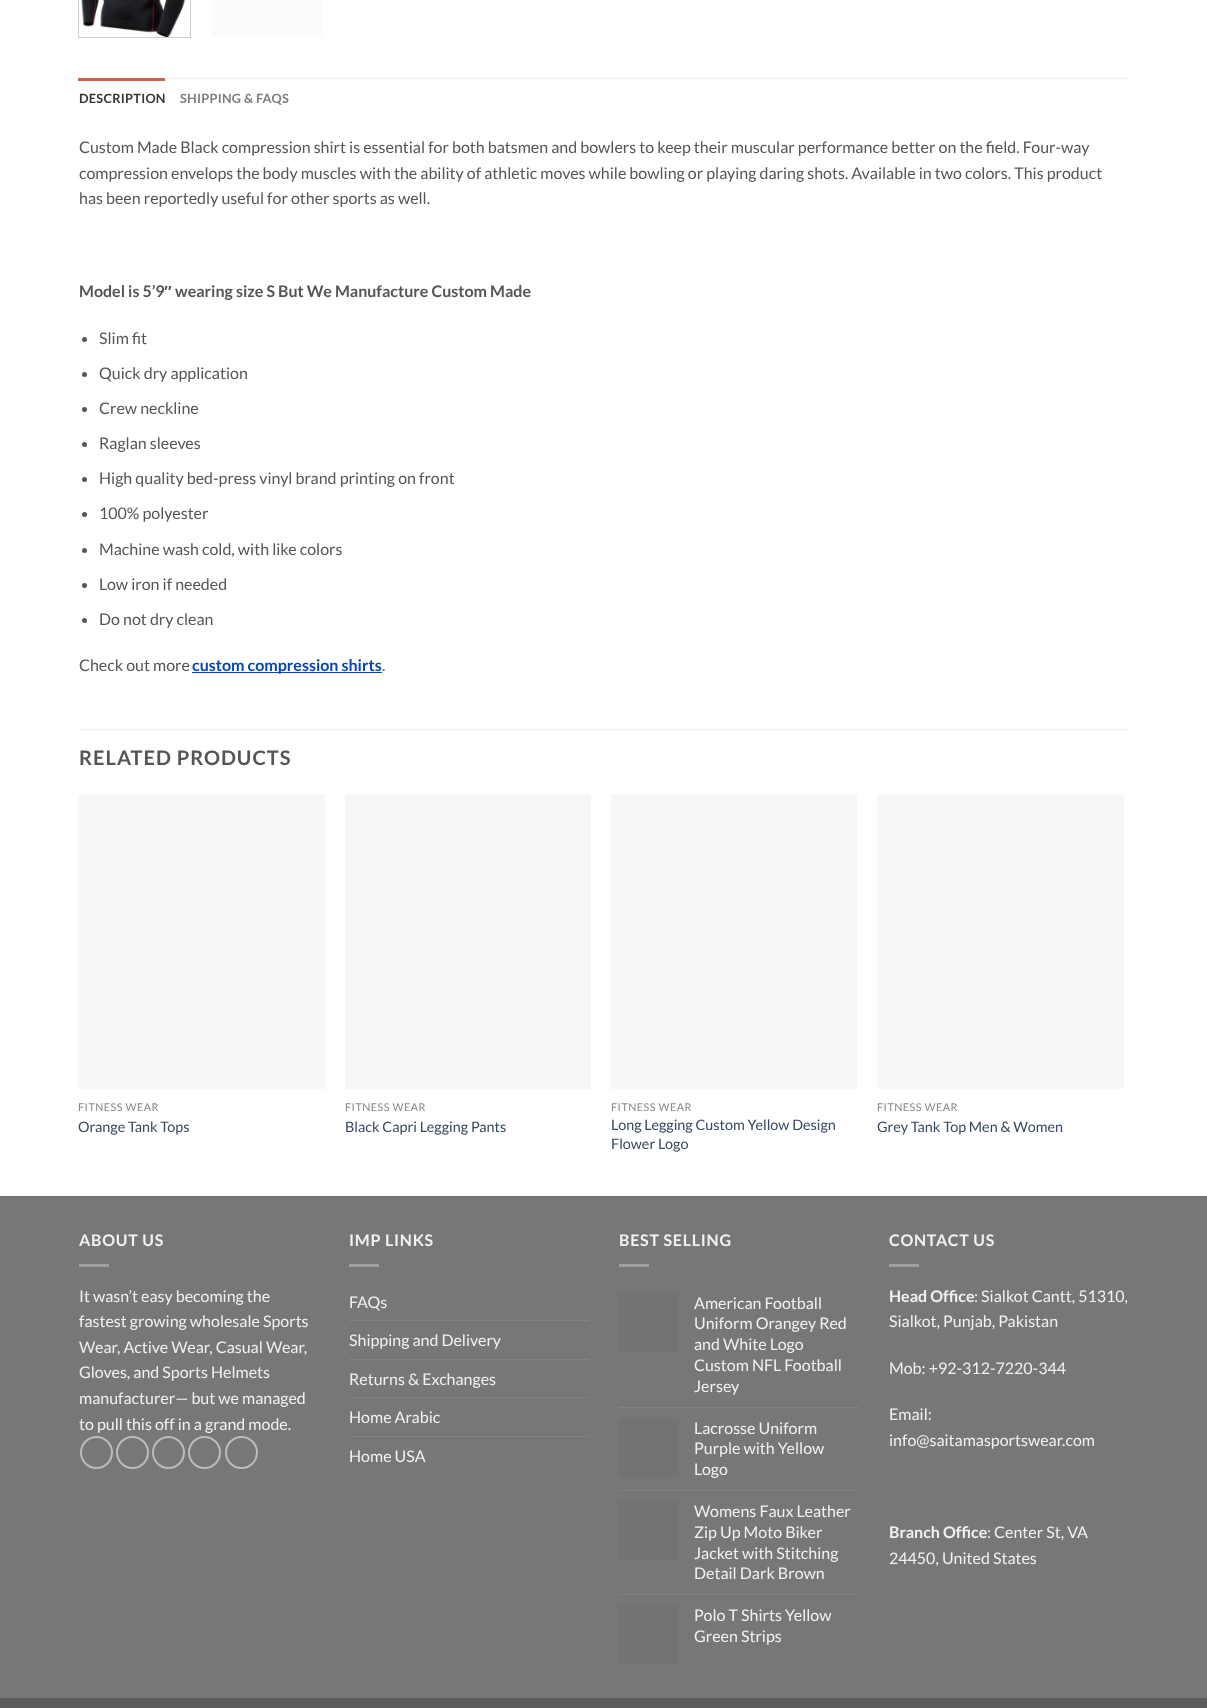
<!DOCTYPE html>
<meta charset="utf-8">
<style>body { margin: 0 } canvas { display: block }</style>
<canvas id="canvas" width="1207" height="1708"></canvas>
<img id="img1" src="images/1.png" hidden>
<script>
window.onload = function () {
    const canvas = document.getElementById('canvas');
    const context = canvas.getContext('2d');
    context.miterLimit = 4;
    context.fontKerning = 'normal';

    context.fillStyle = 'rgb(255, 255, 255)';
    context.fillRect(0, 0, 1207, 1708);
    context.strokeStyle = 'rgb(204, 204, 204)';
    context.strokeRect(78.5, -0.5, 112, 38);
    context.drawImage(document.getElementById('img1'), 81, 0, 105, 37);
    context.fillStyle = 'rgb(251, 251, 251)';
    context.fillRect(212, 0, 111, 37);
    context.fillStyle = 'rgb(236, 236, 236)';
    context.fillRect(165, 78, 964, 1);
    context.fillStyle = 'rgb(202, 100, 75)';
    context.fillRect(78, 78, 87, 3);
    context.fillStyle = 'rgb(85, 85, 85)';
    context.beginPath();
    context.arc(84.5, 339.5, 2.5, 0, 2 * Math.PI);
    context.fill();
    context.beginPath();
    context.arc(84.5, 374.5, 2.5, 0, 2 * Math.PI);
    context.fill();
    context.beginPath();
    context.arc(84.5, 409.5, 2.5, 0, 2 * Math.PI);
    context.fill();
    context.beginPath();
    context.arc(84.5, 444.5, 2.5, 0, 2 * Math.PI);
    context.fill();
    context.beginPath();
    context.arc(84.5, 479.5, 2.5, 0, 2 * Math.PI);
    context.fill();
    context.beginPath();
    context.arc(84.5, 514.5, 2.5, 0, 2 * Math.PI);
    context.fill();
    context.beginPath();
    context.arc(84.5, 550.5, 2.5, 0, 2 * Math.PI);
    context.fill();
    context.beginPath();
    context.arc(84.5, 585.5, 2.5, 0, 2 * Math.PI);
    context.fill();
    context.beginPath();
    context.arc(84.5, 620.5, 2.5, 0, 2 * Math.PI);
    context.fill();
    context.fillStyle = 'rgb(8, 69, 181)';
    context.fillRect(192, 672, 190, 1);
    context.fillStyle = 'rgb(236, 236, 236)';
    context.fillRect(79, 729, 1050, 1);
    context.fillStyle = 'rgb(247, 247, 247)';
    context.fillRect(78, 794, 247, 295);
    context.fillRect(345, 794, 246, 295);
    context.fillRect(611, 794, 246, 295);
    context.fillRect(877, 794, 247, 295);
    context.fillStyle = 'rgb(119, 119, 119)';
    context.fillRect(0, 1197, 1207, 501);
    context.fillStyle = 'rgb(113, 113, 113)';
    context.fillRect(0, 1196, 1207, 1);
    context.fillStyle = 'rgb(160, 160, 160)';
    context.fillRect(79, 1264, 30, 3);
    context.beginPath();
    context.arc(96.5, 1452.5, 15.5, 0, 2 * Math.PI);
    context.strokeStyle = 'rgb(187, 187, 187)';
    context.lineWidth = 2;
    context.stroke();
    context.beginPath();
    context.arc(132.5, 1452.5, 15.5, 0, 2 * Math.PI);
    context.stroke();
    context.beginPath();
    context.arc(168.5, 1452.5, 15.5, 0, 2 * Math.PI);
    context.stroke();
    context.beginPath();
    context.arc(204.5, 1452.5, 15.5, 0, 2 * Math.PI);
    context.stroke();
    context.beginPath();
    context.arc(241.5, 1452.5, 15.5, 0, 2 * Math.PI);
    context.stroke();
    context.fillRect(349, 1264, 30, 3);
    context.fillStyle = 'rgb(130, 130, 130)';
    context.fillRect(349, 1320, 240, 1);
    context.fillRect(349, 1359, 240, 1);
    context.fillRect(349, 1397, 240, 1);
    context.fillRect(349, 1436, 240, 1);
    context.fillStyle = 'rgb(160, 160, 160)';
    context.fillRect(619, 1264, 30, 3);
    context.fillStyle = 'rgb(115, 115, 115)';
    context.fillRect(619, 1293, 60, 60);
    context.fillStyle = 'rgb(130, 130, 130)';
    context.fillRect(619, 1407, 240, 1);
    context.fillStyle = 'rgb(115, 115, 115)';
    context.fillRect(619, 1418, 60, 60);
    context.fillStyle = 'rgb(130, 130, 130)';
    context.fillRect(619, 1490, 240, 1);
    context.fillStyle = 'rgb(115, 115, 115)';
    context.fillRect(619, 1501, 60, 60);
    context.fillStyle = 'rgb(130, 130, 130)';
    context.fillRect(619, 1594, 240, 1);
    context.fillStyle = 'rgb(115, 115, 115)';
    context.fillRect(619, 1605, 60, 60);
    context.fillStyle = 'rgb(160, 160, 160)';
    context.fillRect(889, 1264, 30, 3);
    context.fillStyle = 'rgb(91, 91, 91)';
    context.fillRect(0, 1698, 1207, 10);
    context.letterSpacing = '0.25px';
    context.font = 'bold 12.75px Lato';
    context.fillStyle = 'rgb(53, 53, 53)';
    context.fillText('DESCRIPTION', 79, 103);
    context.fillStyle = 'rgb(125, 125, 125)';
    context.fillText('SHIPPING & FAQS', 180, 103);
    context.letterSpacing = '0px';
    context.font = '16px Lato';
    context.fillStyle = 'rgb(85, 85, 85)';
    context.fillText('Custom Made Black compression shirt is essential for both batsmen and bowlers to keep their muscular performance better on the field. Four-way', 79, 153);
    context.fillText('compression envelops the body muscles with the ability of athletic moves while bowling or playing daring shots. Available in two colors. This product', 79, 179);
    context.fillText('has been reportedly useful for other sports as well.', 79, 204);
    context.font = 'bold 16px Lato';
    context.fillText('Model is 5’9', 79, 297);
    context.font = 'bold 16px Liberation Sans';
    context.fillText('″', 164, 297);
    context.font = 'bold 16px Lato';
    context.fillText('wearing size S But We Manufacture Custom Made', 175, 297);
    context.font = '16px Lato';
    context.fillText('Slim fit', 99, 344);
    context.fillText('Quick dry application', 99, 379);
    context.fillText('Crew neckline', 99, 414);
    context.fillText('Raglan sleeves', 99, 449);
    context.fillText('High quality bed-press vinyl brand printing on front', 99, 484);
    context.fillText('100% polyester', 99, 519);
    context.fillText('Machine wash cold, with like colors', 99, 555);
    context.fillText('Low iron if needed', 99, 590);
    context.fillText('Do not dry clean', 99, 625);
    context.fillText('Check out more', 79, 671);
    context.font = 'bold 16px Lato';
    context.fillStyle = 'rgb(8, 69, 181)';
    context.fillText('custom compression shirts', 192, 671);
    context.font = '16px Lato';
    context.fillStyle = 'rgb(85, 85, 85)';
    context.fillText('.', 382, 671);
    context.letterSpacing = '1px';
    context.font = 'bold 20px Lato';
    context.fillText('RELATED PRODUCTS', 79, 765);
    context.letterSpacing = '0.5px';
    context.font = '10.75px Lato';
    context.fillStyle = 'rgb(136, 136, 136)';
    context.fillText('FITNESS WEAR', 78, 1111);
    context.letterSpacing = '0px';
    context.font = '14.4px Lato';
    context.fillStyle = 'rgb(51, 72, 98)';
    context.fillText('Orange Tank Tops', 78, 1132);
    context.letterSpacing = '0.5px';
    context.font = '10.75px Lato';
    context.fillStyle = 'rgb(136, 136, 136)';
    context.fillText('FITNESS WEAR', 345, 1111);
    context.letterSpacing = '0px';
    context.font = '14.4px Lato';
    context.fillStyle = 'rgb(51, 72, 98)';
    context.fillText('Black Capri Legging Pants', 345, 1132);
    context.letterSpacing = '0.5px';
    context.font = '10.75px Lato';
    context.fillStyle = 'rgb(136, 136, 136)';
    context.fillText('FITNESS WEAR', 611, 1111);
    context.letterSpacing = '0px';
    context.font = '14.4px Lato';
    context.fillStyle = 'rgb(51, 72, 98)';
    context.fillText('Long Legging Custom Yellow Design', 611, 1130);
    context.fillText('Flower Logo', 611, 1149);
    context.letterSpacing = '0.5px';
    context.font = '10.75px Lato';
    context.fillStyle = 'rgb(136, 136, 136)';
    context.fillText('FITNESS WEAR', 877, 1111);
    context.letterSpacing = '0px';
    context.font = '14.4px Lato';
    context.fillStyle = 'rgb(51, 72, 98)';
    context.fillText('Grey Tank Top Men & Women', 877, 1132);
    context.letterSpacing = '0.75px';
    context.font = 'bold 16px Lato';
    context.fillStyle = 'rgb(241, 241, 241)';
    context.fillText('ABOUT US', 79, 1246);
    context.letterSpacing = '0px';
    context.font = '16px Lato';
    context.fillText('It wasn’t easy becoming the', 79, 1302);
    context.fillText('fastest growing wholesale Sports', 79, 1327);
    context.fillText('Wear, Active Wear, Casual Wear,', 79, 1353);
    context.fillText('Gloves, and Sports Helmets', 79, 1378);
    context.fillText('manufacturer— but we managed', 79, 1404);
    context.fillText('to pull this off in a grand mode.', 79, 1430);
    context.letterSpacing = '0.75px';
    context.font = 'bold 16px Lato';
    context.fillText('IMP LINKS', 349, 1246);
    context.letterSpacing = '0px';
    context.font = '16px Lato';
    context.fillText('FAQs', 349, 1308);
    context.fillText('Shipping and Delivery', 349, 1346);
    context.fillText('Returns & Exchanges', 349, 1385);
    context.fillText('Home Arabic', 349, 1423);
    context.fillText('Home USA', 349, 1462);
    context.letterSpacing = '0.75px';
    context.font = 'bold 16px Lato';
    context.fillText('BEST SELLING', 619, 1246);
    context.letterSpacing = '0px';
    context.font = '16px Lato';
    context.fillText('American Football', 694, 1309);
    context.fillText('Uniform Orangey Red', 694, 1329);
    context.fillText('and White Logo', 694, 1350);
    context.fillText('Custom NFL Football', 694, 1371);
    context.fillText('Jersey', 694, 1392);
    context.fillText('Lacrosse Uniform', 694, 1434);
    context.fillText('Purple with Yellow', 694, 1454);
    context.fillText('Logo', 694, 1475);
    context.fillText('Womens Faux Leather', 694, 1517);
    context.fillText('Zip Up Moto Biker', 694, 1538);
    context.fillText('Jacket with Stitching', 694, 1559);
    context.fillText('Detail Dark Brown', 694, 1579);
    context.fillText('Polo T Shirts Yellow', 694, 1621);
    context.fillText('Green Strips', 694, 1642);
    context.letterSpacing = '0.75px';
    context.font = 'bold 16px Lato';
    context.fillText('CONTACT US', 889, 1246);
    context.letterSpacing = '0px';
    context.fillText('Head Office', 889, 1302);
    context.font = '16px Lato';
    context.fillText(': Sialkot Cantt, 51310,', 974, 1302);
    context.fillText('Sialkot, Punjab, Pakistan', 889, 1327);
    context.fillText('Mob: +92-312-7220-344', 889, 1374);
    context.fillText('Email:', 889, 1420);
    context.fillText('info@saitamasportswear.com', 889, 1446);
    context.font = 'bold 16px Lato';
    context.fillText('Branch Office', 889, 1538);
    context.font = '16px Lato';
    context.fillText(': Center St, VA', 987, 1538);
    context.fillText('24450, United States', 889, 1564);
};
</script>
